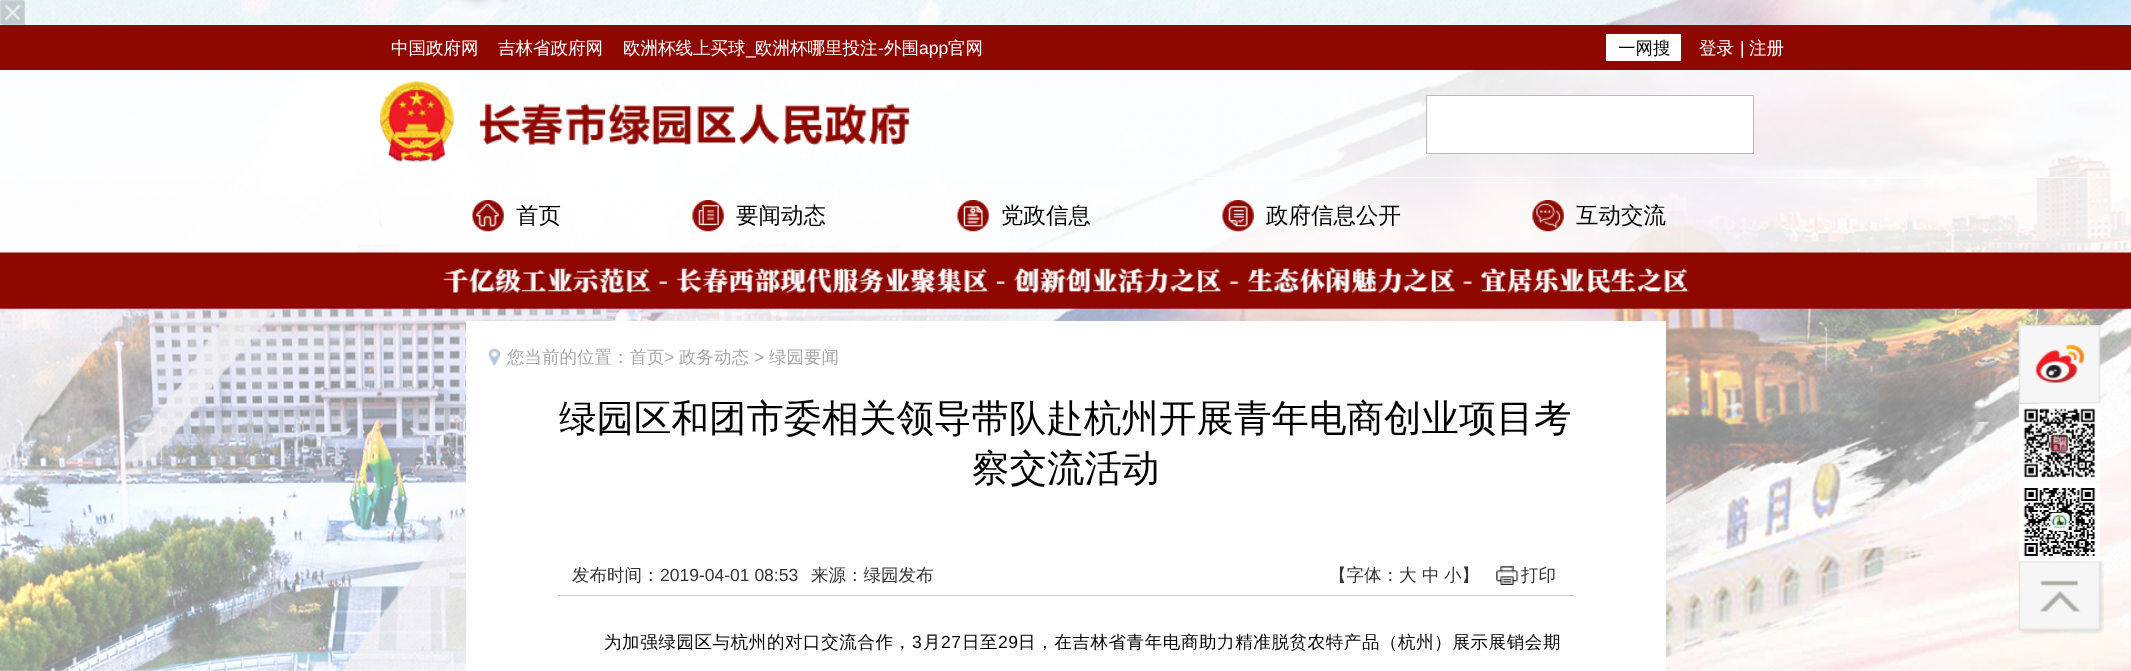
<!DOCTYPE html>
<meta charset="utf-8">
<style>body { margin: 0 } canvas { display: block }</style>
<canvas id="canvas" width="2131" height="671"></canvas>
<img id="img1" src="images/1.png" hidden>
<img id="img2" src="images/2.png" hidden>
<img id="img3" src="images/3.png" hidden>
<img id="img4" src="images/4.png" hidden>
<img id="img5" src="images/5.png" hidden>
<img id="img6" src="images/6.png" hidden>
<img id="img7" src="images/7.png" hidden>
<img id="img8" src="images/8.png" hidden>
<img id="img9" src="images/9.png" hidden>
<img id="img10" src="images/10.png" hidden>
<img id="img11" src="images/11.png" hidden>
<img id="img12" src="images/12.png" hidden>
<img id="img13" src="images/13.png" hidden>
<img id="img14" src="images/14.png" hidden>
<img id="img15" src="images/15.png" hidden>
<script>
window.onload = function () {
    const canvas = document.getElementById('canvas');
    const context = canvas.getContext('2d');
    context.miterLimit = 4;
    context.fontKerning = 'normal';

    context.fillStyle = 'rgb(255, 255, 255)';
    context.fillRect(0, 0, 2131, 671);
    context.drawImage(document.getElementById('img1'), 0, 0, 2131, 671);
    context.drawImage(document.getElementById('img2'), 0, 0, 25, 25);
    context.drawImage(document.getElementById('img3'), 2018, 325, 83, 79);
    context.drawImage(document.getElementById('img4'), 2018, 403, 82, 80);
    context.drawImage(document.getElementById('img5'), 2018, 483, 82, 78);
    context.drawImage(document.getElementById('img6'), 2018, 561, 86, 73);
    context.fillStyle = 'rgb(142, 8, 0)';
    context.fillRect(0, 25, 2131, 45);
    context.fillStyle = 'rgb(255, 255, 255)';
    context.fillRect(1606, 34, 75, 27);
    context.fillStyle = 'rgba(255, 255, 255, 0.76)';
    context.fillRect(0, 70, 2131, 108);
    context.drawImage(document.getElementById('img7'), 379, 81, 532, 81);
    context.fillStyle = 'rgb(255, 255, 255)';
    context.beginPath();
    context.rect(1426.5, 95.5, 327, 58);
    context.fill();
    context.strokeStyle = 'rgb(186, 186, 186)';
    context.stroke();
    context.fillStyle = 'rgba(255, 255, 255, 0.76)';
    context.fillRect(0, 177, 2131, 76);
    context.drawImage(document.getElementById('img8'), 472, 200, 32, 32);
    context.drawImage(document.getElementById('img9'), 692, 200, 32, 32);
    context.drawImage(document.getElementById('img10'), 957, 200, 32, 32);
    context.drawImage(document.getElementById('img11'), 1222, 200, 32, 32);
    context.drawImage(document.getElementById('img12'), 1532, 200, 32, 32);
    context.drawImage(document.getElementById('img13'), 0, 252, 2131, 57);
    context.fillStyle = 'rgb(255, 255, 255)';
    context.fillRect(466, 321, 1200, 350);
    context.drawImage(document.getElementById('img14'), 488, 348, 12, 19);
    context.fillStyle = 'rgb(204, 204, 204)';
    context.fillRect(558, 595, 1016, 1);
    context.drawImage(document.getElementById('img15'), 1496, 566, 23, 19);
    context.font = '500 17.5px WenQuanYi Zen Hei';
    context.fillStyle = 'rgb(255, 255, 255)';
    context.fillText('中国政府网', 391, 54);
    context.fillText('吉林省政府网', 498, 54);
    context.fillText('欧洲杯线上买球', 623, 54);
    context.fillText('欧洲杯哪里投注', 755, 54);
    context.font = '17.5px Liberation Sans';
    context.fillText('-', 878, 54);
    context.font = '500 17.5px WenQuanYi Zen Hei';
    context.fillText('外围', 884, 54);
    context.font = '17.5px Liberation Sans';
    context.fillText('app', 919, 54);
    context.font = '500 17.5px WenQuanYi Zen Hei';
    context.fillText('官网', 948, 54);
    context.font = '17.5px Liberation Sans';
    context.fillText('_', 746, 54);
    context.font = '500 17.5px WenQuanYi Zen Hei';
    context.fillStyle = 'rgb(0, 0, 0)';
    context.fillText('一网搜', 1618, 54);
    context.fillStyle = 'rgb(255, 255, 255)';
    context.fillText('登录', 1699, 54);
    context.font = '17.5px Liberation Sans';
    context.fillText('|', 1740, 54);
    context.font = '500 17.5px WenQuanYi Zen Hei';
    context.fillText('注册', 1749, 54);
    context.font = '500 22.5px WenQuanYi Zen Hei';
    context.fillStyle = 'rgb(0, 0, 0)';
    context.fillText('首页', 516, 223);
    context.fillText('要闻动态', 736, 223);
    context.fillText('党政信息', 1001, 223);
    context.fillText('政府信息公开', 1266, 223);
    context.fillText('互动交流', 1576, 223);
    context.font = '500 17.5px WenQuanYi Zen Hei';
    context.fillStyle = 'rgb(169, 169, 169)';
    context.fillText('您当前的位置：首页', 507, 363);
    context.font = '17.5px Liberation Sans';
    context.fillText('>', 664, 363);
    context.font = '500 17.5px WenQuanYi Zen Hei';
    context.fillText('政务动态', 679, 363);
    context.font = '17.5px Liberation Sans';
    context.fillText('>', 754, 363);
    context.font = '500 17.5px WenQuanYi Zen Hei';
    context.fillText('绿园要闻', 769, 363);
    context.font = '500 37.5px WenQuanYi Zen Hei';
    context.fillStyle = 'rgb(0, 0, 0)';
    context.fillText('绿园区和团市委相关领导带队赴杭州开展青年电商创业项目考', 559, 431);
    context.fillText('察交流活动', 972, 481);
    context.font = '500 17.5px WenQuanYi Zen Hei';
    context.fillStyle = 'rgb(51, 51, 51)';
    context.fillText('发布时间：', 572, 581);
    context.font = '17.5px Liberation Sans';
    context.fillText('2019-04-01 08:53', 660, 581);
    context.font = '500 17.5px WenQuanYi Zen Hei';
    context.fillText('来源：绿园发布', 811, 581);
    context.fillText('【字体：大', 1329, 581);
    context.fillText('中', 1422, 581);
    context.fillText('小】', 1444, 581);
    context.fillText('打印', 1521, 581);
    context.letterSpacing = '0.6px';
    context.fillStyle = 'rgb(0, 0, 0)';
    context.fillText('为加强绿园区与杭州的对口交流合作，', 604, 648);
    context.font = '17.5px Liberation Sans';
    context.fillText('3', 912, 648);
    context.font = '500 17.5px WenQuanYi Zen Hei';
    context.fillText('月', 923, 648);
    context.font = '17.5px Liberation Sans';
    context.fillText('27', 941, 648);
    context.font = '500 17.5px WenQuanYi Zen Hei';
    context.fillText('日至', 962, 648);
    context.font = '17.5px Liberation Sans';
    context.fillText('29', 998, 648);
    context.font = '500 17.5px WenQuanYi Zen Hei';
    context.fillText('日，在吉林省青年电商助力精准脱贫农特产品（杭州）展示展销会期', 1018, 648);
};
</script>
